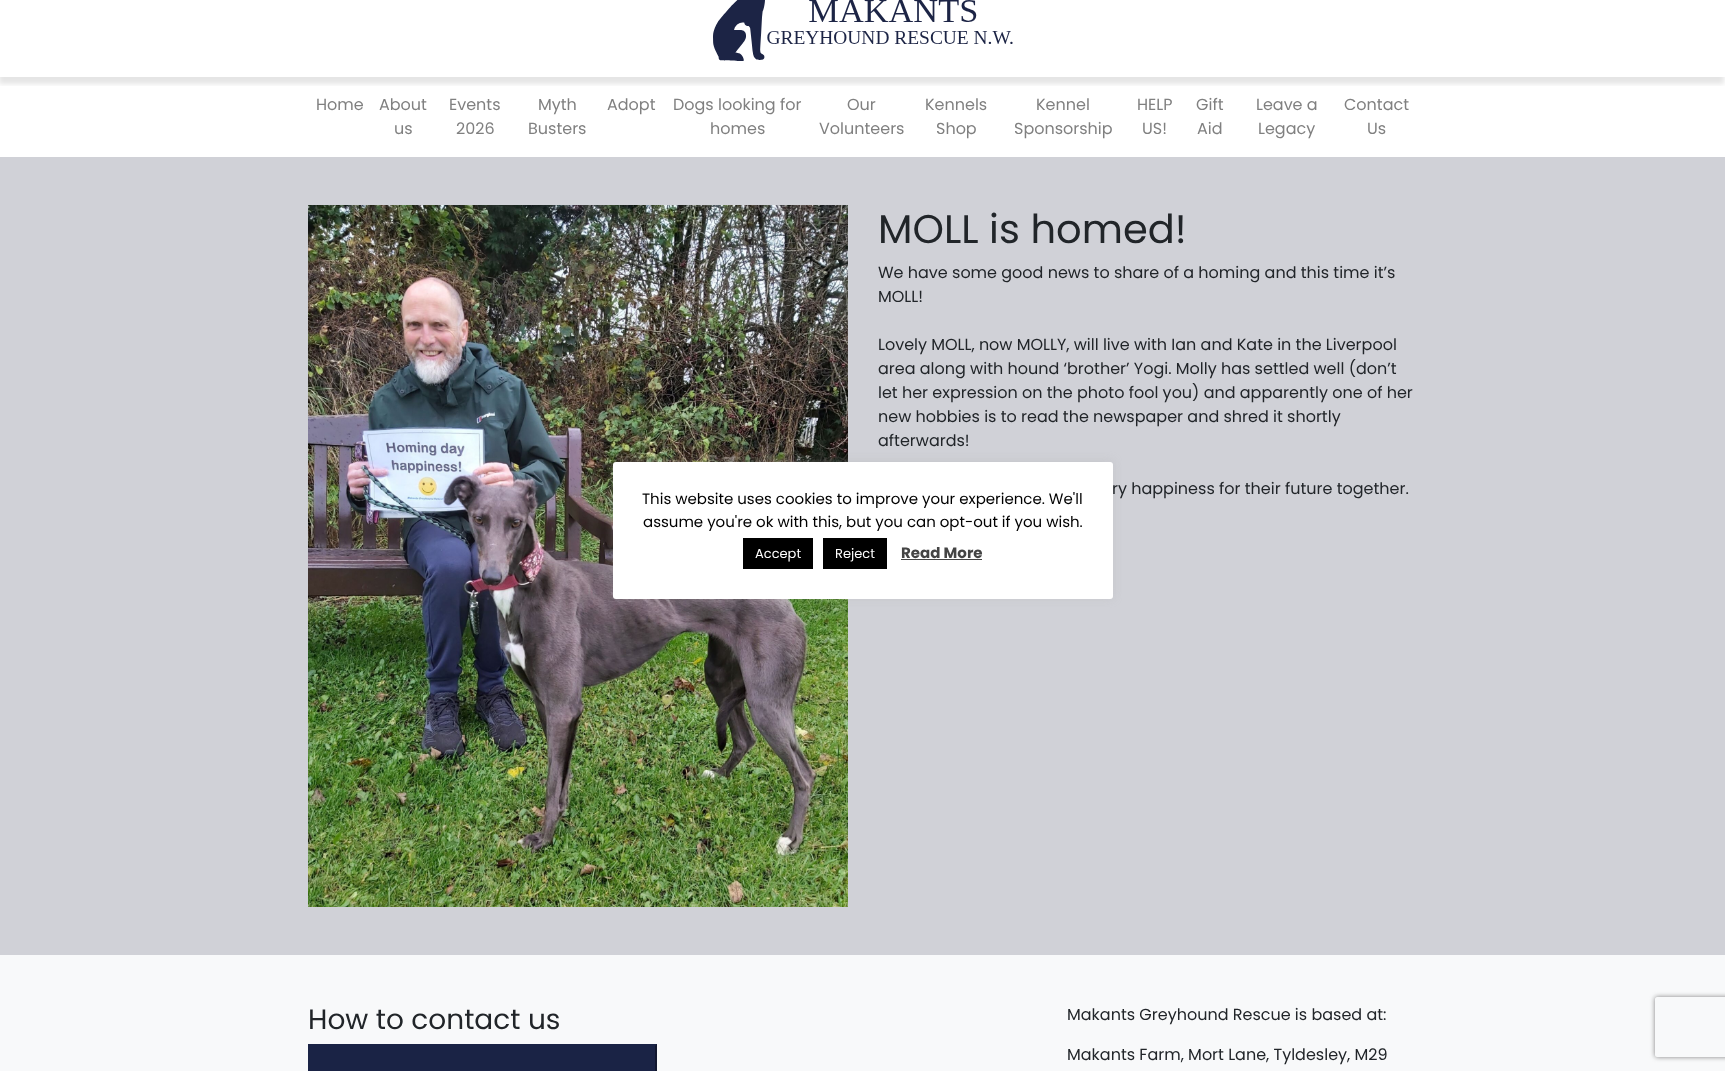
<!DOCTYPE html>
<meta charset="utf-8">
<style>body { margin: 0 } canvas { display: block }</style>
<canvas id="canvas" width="1725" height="1071"></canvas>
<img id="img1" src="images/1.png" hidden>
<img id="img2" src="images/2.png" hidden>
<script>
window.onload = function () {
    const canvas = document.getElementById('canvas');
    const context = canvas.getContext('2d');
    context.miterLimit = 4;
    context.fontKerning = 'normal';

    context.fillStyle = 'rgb(255, 255, 255)';
    context.fillRect(0, 0, 1725, 1071);
    context.save();
    context.beginPath();
    context.rect(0, 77, 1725, 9);
    context.clip();
    context.fillStyle = 'rgba(0, 0, 0, 0.1)';
    context.filter = 'blur(2.5px)';
    context.beginPath();
    context.rect(-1, -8, 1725, 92);
    context.fill();
    context.filter = 'none';
    context.restore();
    context.drawImage(document.getElementById('img1'), 713, 0, 300, 61);
    context.fillStyle = 'rgb(208, 209, 215)';
    context.fillRect(0, 157, 1725, 798);
    context.drawImage(document.getElementById('img2'), 308, 205, 540, 702);
    context.fillStyle = 'rgb(248, 249, 250)';
    context.fillRect(0, 955, 1725, 116);
    context.fillStyle = 'rgb(26, 35, 69)';
    context.fillRect(308, 1044, 349, 27);
    context.fillStyle = 'rgb(17, 23, 46)';
    context.beginPath();
    context.moveTo(657, 1044);
    context.lineTo(657, 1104);
    context.lineTo(655, 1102);
    context.lineTo(655, 1046);
    context.closePath();
    context.fill();
    context.fillStyle = 'rgba(172, 171, 171, 0.3)';
    context.filter = 'blur(5px)';
    context.beginPath();
    context.roundRect(613, 461, 500, 137, 3);
    context.fill();
    context.filter = 'none';
    context.save();
    context.beginPath();
    context.moveTo(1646, 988);
    context.lineTo(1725, 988);
    context.lineTo(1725, 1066);
    context.lineTo(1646, 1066);
    context.closePath();
    context.moveTo(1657, 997);
    context.lineTo(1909, 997);
    context.bezierCurveTo(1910, 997, 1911, 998, 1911, 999);
    context.lineTo(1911, 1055);
    context.bezierCurveTo(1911, 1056, 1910, 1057, 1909, 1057);
    context.lineTo(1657, 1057);
    context.bezierCurveTo(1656, 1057, 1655, 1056, 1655, 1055);
    context.lineTo(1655, 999);
    context.bezierCurveTo(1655, 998, 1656, 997, 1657, 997);
    context.closePath();
    context.clip('evenodd');
    context.fillStyle = 'rgb(128, 128, 128)';
    context.filter = 'blur(2.5px)';
    context.beginPath();
    context.roundRect(1655, 997, 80, 60, 2);
    context.fill();
    context.filter = 'none';
    context.restore();
    context.font = '16px Poppins';
    context.fillStyle = 'rgb(128, 128, 128)';
    context.fillText('Home', 316, 110);
    context.fillText('About', 379, 110);
    context.fillText('us', 394, 134);
    context.fillText('Events', 449, 110);
    context.fillText('2026', 456, 134);
    context.fillText('Myth', 538, 110);
    context.fillText('Busters', 528, 134);
    context.fillText('Adopt', 607, 110);
    context.fillText('Dogs looking for', 673, 110);
    context.fillText('homes', 710, 134);
    context.fillText('Our', 847, 110);
    context.fillText('Volunteers', 819, 134);
    context.fillText('Kennels', 925, 110);
    context.fillText('Shop', 936, 134);
    context.fillText('Kennel', 1036, 110);
    context.fillText('Sponsorship', 1014, 134);
    context.fillText('HELP', 1137, 110);
    context.fillText('US!', 1142, 134);
    context.fillText('Gift', 1196, 110);
    context.fillText('Aid', 1197, 134);
    context.fillText('Leave a', 1256, 110);
    context.fillText('Legacy', 1258, 134);
    context.fillText('Contact', 1344, 110);
    context.fillText('Us', 1367, 134);
    context.font = '40px Poppins';
    context.fillStyle = 'rgb(33, 37, 41)';
    context.fillText('MOLL is homed!', 878, 243);
    context.font = '16px Poppins';
    context.fillText('We have some good news to share of a homing and this time it’s', 878, 278);
    context.fillText('MOLL!', 878, 302);
    context.fillText('Lovely MOLL, now MOLLY, will live with Ian and Kate in the Liverpool', 878, 350);
    context.fillText('area along with hound ‘brother’ Yogi. Molly has settled well (don’t', 878, 374);
    context.fillText('let her expression on the photo fool you) and apparently one of her', 878, 398);
    context.fillText('new hobbies is to read the newspaper and shred it shortly', 878, 422);
    context.fillText('afterwards!', 878, 446);
    context.fillText('ry happiness for their future together.', 1112, 494);
    context.font = '28px Poppins';
    context.fillText('How to contact us', 308, 1029);
    context.font = '16px Poppins';
    context.fillText('Makants Greyhound Rescue is based at:', 1067, 1020);
    context.fillText('Makants Farm, Mort Lane, Tyldesley, M29', 1067, 1060);
    context.fillStyle = 'rgb(255, 255, 255)';
    context.beginPath();
    context.roundRect(613, 462, 500, 137, 3);
    context.fill();
    context.font = '15px Poppins';
    context.fillStyle = 'rgb(0, 0, 0)';
    context.fillText('This website uses cookies to improve your experience. We\'ll', 642, 504);
    context.fillText('assume you\'re ok with this, but you can opt-out if you wish.', 643, 527);
    context.fillRect(743, 538, 70, 31);
    context.font = '13px Poppins';
    context.fillStyle = 'rgb(255, 255, 255)';
    context.fillText('Accept', 755, 558);
    context.fillStyle = 'rgb(0, 0, 0)';
    context.fillRect(823, 538, 64, 31);
    context.fillStyle = 'rgb(255, 255, 255)';
    context.fillText('Reject', 835, 558);
    context.font = 'bold 15px Poppins';
    context.fillStyle = 'rgb(68, 68, 68)';
    context.fillText('Read More', 901, 558);
    context.fillRect(901, 559, 81, 1);
};
</script>
